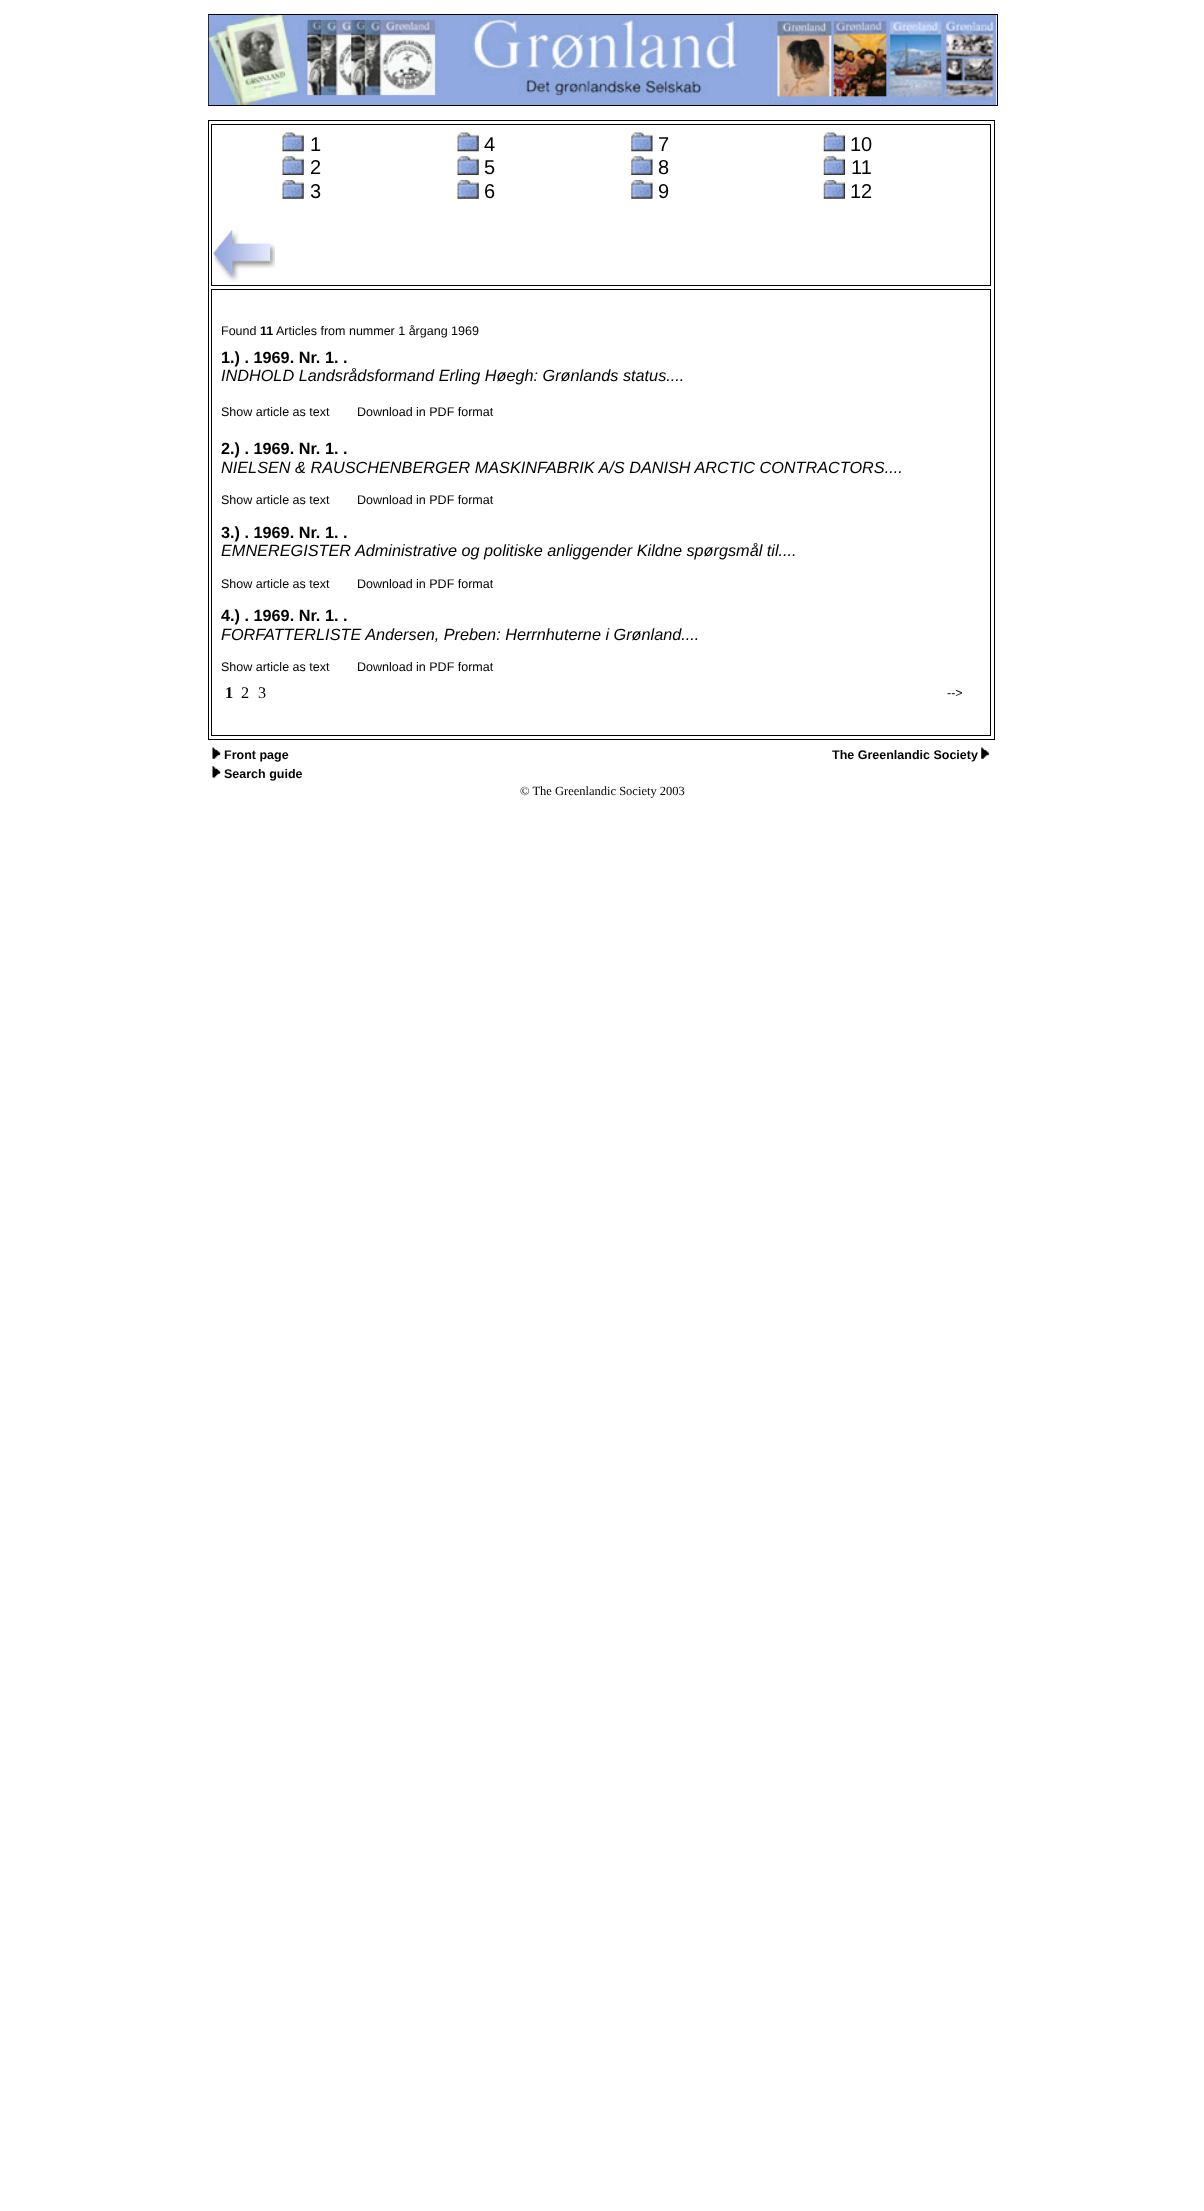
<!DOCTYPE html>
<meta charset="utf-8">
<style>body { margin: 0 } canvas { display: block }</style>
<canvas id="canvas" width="1204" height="2211"></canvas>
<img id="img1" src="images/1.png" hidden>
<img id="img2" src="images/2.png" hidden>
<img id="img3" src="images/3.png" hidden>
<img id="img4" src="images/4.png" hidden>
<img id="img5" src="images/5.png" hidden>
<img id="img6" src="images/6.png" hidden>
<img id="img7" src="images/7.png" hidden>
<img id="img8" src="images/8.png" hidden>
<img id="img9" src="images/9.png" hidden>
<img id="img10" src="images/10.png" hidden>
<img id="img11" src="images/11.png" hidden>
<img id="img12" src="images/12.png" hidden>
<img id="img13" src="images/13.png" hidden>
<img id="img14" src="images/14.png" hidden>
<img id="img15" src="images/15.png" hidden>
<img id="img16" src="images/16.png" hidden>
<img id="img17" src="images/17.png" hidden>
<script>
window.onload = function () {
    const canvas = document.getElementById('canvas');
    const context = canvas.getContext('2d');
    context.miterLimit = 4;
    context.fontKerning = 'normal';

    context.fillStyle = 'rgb(255, 255, 255)';
    context.fillRect(0, 0, 1204, 2211);
    context.strokeStyle = 'rgb(0, 0, 0)';
    context.strokeRect(208.5, 14.5, 789, 91);
    context.drawImage(document.getElementById('img1'), 208, 15, 789, 90);
    context.strokeRect(208.5, 120.5, 786, 619);
    context.strokeRect(211.5, 124.5, 779, 161);
    context.drawImage(document.getElementById('img2'), 282, 132, 22, 20);
    context.drawImage(document.getElementById('img3'), 282, 156, 22, 19);
    context.drawImage(document.getElementById('img4'), 282, 180, 22, 19);
    context.drawImage(document.getElementById('img5'), 457, 132, 22, 20);
    context.drawImage(document.getElementById('img6'), 457, 156, 22, 19);
    context.drawImage(document.getElementById('img7'), 457, 180, 22, 19);
    context.drawImage(document.getElementById('img8'), 631, 132, 22, 20);
    context.drawImage(document.getElementById('img9'), 631, 156, 22, 19);
    context.drawImage(document.getElementById('img10'), 631, 180, 22, 19);
    context.drawImage(document.getElementById('img11'), 823, 132, 22, 20);
    context.drawImage(document.getElementById('img12'), 823, 156, 22, 19);
    context.drawImage(document.getElementById('img13'), 823, 180, 22, 19);
    context.drawImage(document.getElementById('img14'), 213, 230, 62, 52);
    context.strokeRect(211.5, 289.5, 779, 446);
    context.drawImage(document.getElementById('img15'), 212, 747, 10, 12);
    context.drawImage(document.getElementById('img16'), 981, 747, 9, 12);
    context.drawImage(document.getElementById('img17'), 212, 766, 10, 12);
    context.font = '20px Liberation Sans';
    context.fillStyle = 'rgb(0, 0, 0)';
    context.fillText('1', 310, 151);
    context.fillText('2', 310, 174);
    context.fillText('3', 310, 198);
    context.fillText('4', 484, 151);
    context.fillText('5', 484, 174);
    context.fillText('6', 484, 198);
    context.fillText('7', 658, 151);
    context.fillText('8', 658, 174);
    context.fillText('9', 658, 198);
    context.fillText('10', 850, 151);
    context.fillText('11', 851, 174);
    context.fillText('12', 850, 198);
    context.font = '12.5px Liberation Sans';
    context.fillText('Found', 221, 335);
    context.font = 'bold 12.5px Liberation Sans';
    context.fillText('11', 260, 335);
    context.font = '12.5px Liberation Sans';
    context.fillText('Articles from nummer 1 årgang 1969', 276, 335);
    context.font = 'bold 16.25px Liberation Sans';
    context.fillText('1.) . 1969. Nr. 1. .', 221, 363);
    context.font = 'italic 16.25px Liberation Sans';
    context.fillText('INDHOLD Landsrådsformand Erling Høegh: Grønlands status....', 221, 381);
    context.font = '12.5px Liberation Sans';
    context.fillText('Show article as text', 221, 416);
    context.fillText('Download in PDF format', 357, 416);
    context.font = 'bold 16.25px Liberation Sans';
    context.fillText('2.) . 1969. Nr. 1. .', 221, 454);
    context.font = 'italic 16.25px Liberation Sans';
    context.fillText('NIELSEN & RAUSCHENBERGER MASKINFABRIK A/S DANISH ARCTIC CONTRACTORS....', 221, 473);
    context.font = '12.5px Liberation Sans';
    context.fillText('Show article as text', 221, 504);
    context.fillText('Download in PDF format', 357, 504);
    context.font = 'bold 16.25px Liberation Sans';
    context.fillText('3.) . 1969. Nr. 1. .', 221, 538);
    context.font = 'italic 16.25px Liberation Sans';
    context.fillText('EMNEREGISTER Administrative og politiske anliggender Kildne spørgsmål til....', 221, 556);
    context.font = '12.5px Liberation Sans';
    context.fillText('Show article as text', 221, 588);
    context.fillText('Download in PDF format', 357, 588);
    context.font = 'bold 16.25px Liberation Sans';
    context.fillText('4.) . 1969. Nr. 1. .', 221, 621);
    context.font = 'italic 16.25px Liberation Sans';
    context.fillText('FORFATTERLISTE Andersen, Preben: Herrnhuterne i Grønland....', 221, 640);
    context.font = '12.5px Liberation Sans';
    context.fillText('Show article as text', 221, 671);
    context.fillText('Download in PDF format', 357, 671);
    context.font = 'bold 16.25px Liberation Serif';
    context.fillText('1', 225, 698);
    context.font = '16.25px Liberation Serif';
    context.fillText('2', 241, 698);
    context.fillText('3', 258, 698);
    context.font = '12.5px Liberation Sans';
    context.fillText('-->', 947, 697);
    context.font = 'bold 12.5px Liberation Sans';
    context.fillText('Front page', 224, 759);
    context.fillText('The Greenlandic Society', 832, 759);
    context.fillText('Search guide', 224, 778);
    context.font = '12.5px Liberation Serif';
    context.fillText('© The Greenlandic Society 2003', 520, 795);
};
</script>
